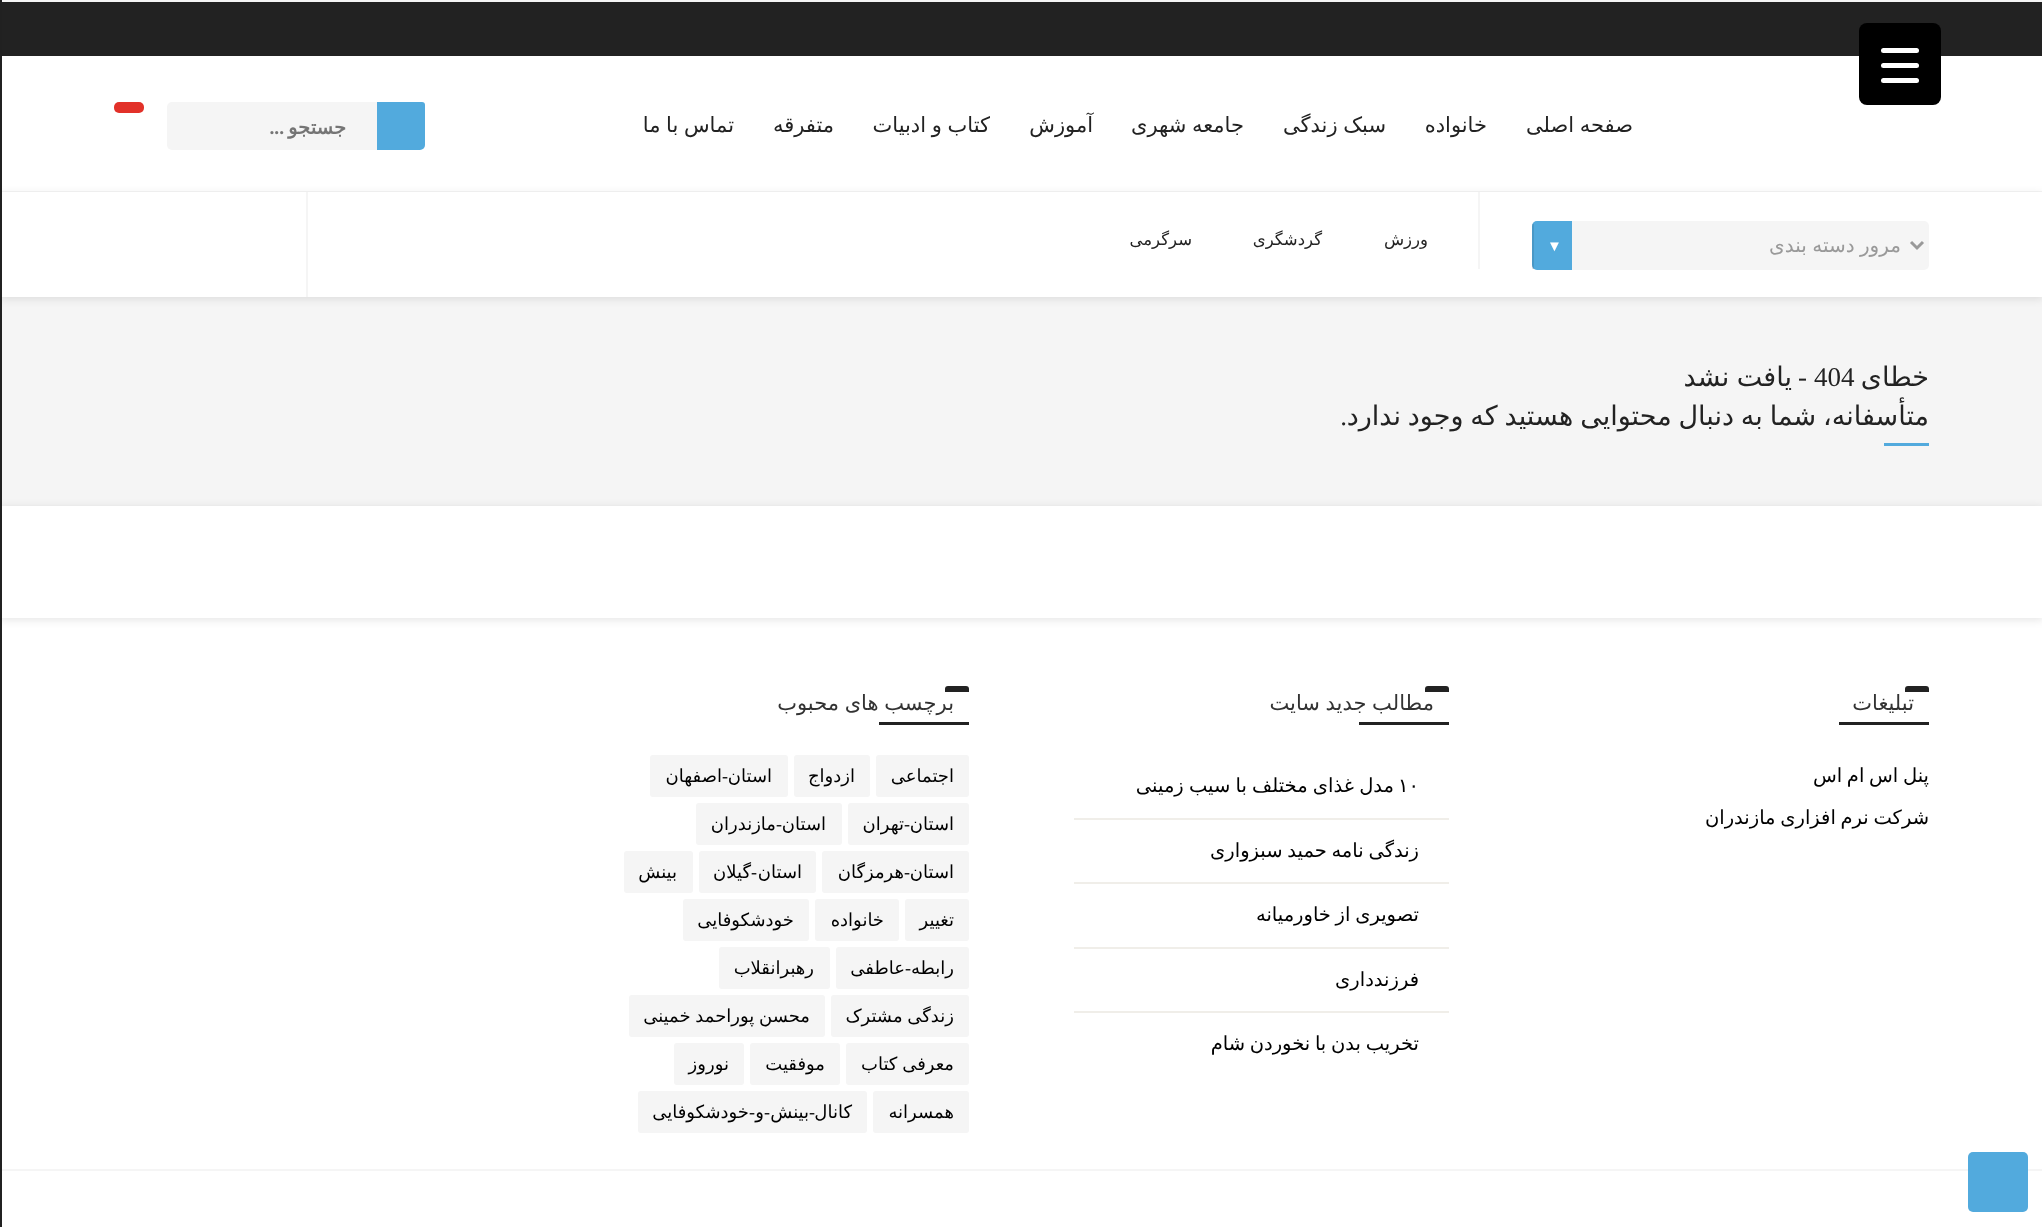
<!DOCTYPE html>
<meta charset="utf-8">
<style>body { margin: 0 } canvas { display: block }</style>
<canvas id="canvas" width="2042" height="1227"></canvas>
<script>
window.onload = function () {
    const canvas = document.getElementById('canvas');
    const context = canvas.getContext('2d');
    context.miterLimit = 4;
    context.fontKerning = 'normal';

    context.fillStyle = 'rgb(245, 245, 245)';
    context.fillRect(0, 0, 2042, 1227);
    context.fillStyle = 'rgb(255, 255, 255)';
    context.fillRect(2, 56, 2040, 135);
    context.fillStyle = 'rgb(34, 34, 34)';
    context.fillRect(2, 2, 2040, 54);
    context.fillStyle = 'rgb(0, 0, 0)';
    context.beginPath();
    context.roundRect(1859, 23, 82, 82, 8);
    context.fill();
    context.fillStyle = 'rgb(255, 255, 255)';
    context.beginPath();
    context.roundRect(1881, 63, 38, 5, 2.5);
    context.fill();
    context.beginPath();
    context.roundRect(1881, 48, 38, 5, 2.5);
    context.fill();
    context.beginPath();
    context.roundRect(1881, 78, 38, 5, 2.5);
    context.fill();
    context.fillStyle = 'rgba(0, 0, 0, 0.1)';
    context.filter = 'blur(4px)';
    context.beginPath();
    context.rect(0, 194, 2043, 105);
    context.fill();
    context.filter = 'none';
    context.fillStyle = 'rgb(255, 255, 255)';
    context.fillRect(2, 506, 2040, 721);
    context.save();
    context.beginPath();
    context.moveTo(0, 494);
    context.lineTo(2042, 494);
    context.lineTo(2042, 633);
    context.lineTo(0, 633);
    context.closePath();
    context.moveTo(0, 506);
    context.lineTo(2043, 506);
    context.lineTo(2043, 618);
    context.lineTo(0, 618);
    context.closePath();
    context.clip('evenodd');
    context.fillStyle = 'rgba(0, 0, 0, 0.1)';
    context.filter = 'blur(4px)';
    context.beginPath();
    context.rect(0, 507, 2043, 113);
    context.fill();
    context.filter = 'none';
    context.restore();
    context.fillStyle = 'rgb(245, 245, 245)';
    context.fillRect(0, 1169, 2042, 2);
    context.fillStyle = 'rgb(33, 33, 33)';
    context.fillRect(0, 0, 2, 1227);
    context.fillStyle = 'rgb(226, 49, 41)';
    context.beginPath();
    context.roundRect(114, 102, 30, 11, 5);
    context.fill();
    context.fillStyle = 'rgb(82, 170, 221)';
    context.beginPath();
    context.roundRect(377, 102, 48, 48, [0, 3, 5, 0]);
    context.fill();
    context.fillStyle = 'rgb(245, 245, 245)';
    context.beginPath();
    context.roundRect(167, 102, 210, 48, [5, 0, 0, 5]);
    context.fill();
    context.fillStyle = 'rgb(255, 255, 255)';
    context.fillRect(2, 192, 2040, 105);
    context.fillStyle = 'rgb(245, 245, 245)';
    context.beginPath();
    context.roundRect(1532, 221, 397, 49, 5);
    context.fill();
    context.fillStyle = 'rgb(82, 170, 221)';
    context.beginPath();
    context.roundRect(1532, 221, 40, 49, [5, 0, 0, 5]);
    context.fill();
    context.fillStyle = 'rgba(0, 0, 0, 0.1)';
    context.fillRect(1532, 224, 2, 45);
    context.beginPath();
    context.moveTo(1911, 242);
    context.lineTo(1917, 248);
    context.lineTo(1923, 242);
    context.strokeStyle = 'rgb(153, 153, 153)';
    context.lineWidth = 3;
    context.stroke();
    context.fillStyle = 'rgb(245, 245, 245)';
    context.fillRect(1478, 192, 2, 77);
    context.fillRect(306, 192, 2, 105);
    context.fillStyle = 'rgb(82, 170, 221)';
    context.fillRect(1884, 443, 45, 3);
    context.fillStyle = 'rgb(34, 34, 34)';
    context.beginPath();
    context.roundRect(1905, 686, 24, 6, [3, 3, 0, 0]);
    context.fill();
    context.fillRect(1839, 722, 90, 3);
    context.beginPath();
    context.roundRect(1425, 686, 24, 6, [3, 3, 0, 0]);
    context.fill();
    context.fillRect(1359, 722, 90, 3);
    context.fillStyle = 'rgb(240, 238, 233)';
    context.fillRect(1074, 818, 375, 2);
    context.fillRect(1074, 882, 375, 2);
    context.fillRect(1074, 947, 375, 2);
    context.fillRect(1074, 1011, 375, 2);
    context.fillStyle = 'rgb(34, 34, 34)';
    context.beginPath();
    context.roundRect(945, 686, 24, 6, [3, 3, 0, 0]);
    context.fill();
    context.fillRect(879, 722, 90, 3);
    context.fillStyle = 'rgb(245, 245, 245)';
    context.beginPath();
    context.roundRect(876, 755, 93, 42, 3);
    context.fill();
    context.beginPath();
    context.roundRect(794, 755, 76, 42, 3);
    context.fill();
    context.beginPath();
    context.roundRect(650, 755, 138, 42, 3);
    context.fill();
    context.beginPath();
    context.roundRect(848, 803, 121, 42, 3);
    context.fill();
    context.beginPath();
    context.roundRect(696, 803, 146, 42, 3);
    context.fill();
    context.beginPath();
    context.roundRect(822, 851, 147, 42, 3);
    context.fill();
    context.beginPath();
    context.roundRect(699, 851, 117, 42, 3);
    context.fill();
    context.beginPath();
    context.roundRect(624, 851, 69, 42, 3);
    context.fill();
    context.beginPath();
    context.roundRect(905, 899, 64, 42, 3);
    context.fill();
    context.beginPath();
    context.roundRect(815, 899, 84, 42, 3);
    context.fill();
    context.beginPath();
    context.roundRect(683, 899, 126, 42, 3);
    context.fill();
    context.beginPath();
    context.roundRect(836, 947, 133, 42, 3);
    context.fill();
    context.beginPath();
    context.roundRect(719, 947, 111, 42, 3);
    context.fill();
    context.beginPath();
    context.roundRect(831, 995, 138, 42, 3);
    context.fill();
    context.beginPath();
    context.roundRect(629, 995, 196, 42, 3);
    context.fill();
    context.beginPath();
    context.roundRect(846, 1043, 123, 42, 3);
    context.fill();
    context.beginPath();
    context.roundRect(750, 1043, 90, 42, 3);
    context.fill();
    context.beginPath();
    context.roundRect(674, 1043, 70, 42, 3);
    context.fill();
    context.beginPath();
    context.roundRect(873, 1091, 96, 42, 3);
    context.fill();
    context.beginPath();
    context.roundRect(638, 1091, 229, 42, 3);
    context.fill();
    context.fillStyle = 'rgb(82, 170, 221)';
    context.beginPath();
    context.roundRect(1968, 1152, 60, 60, 5);
    context.fill();
    context.wordSpacing = '-1px';
    context.direction = 'rtl';
    context.font = '21px DejaVu Sans';
    context.fillStyle = 'rgb(34, 34, 34)';
    context.fillText('صفحه اصلی', 1633, 132);
    context.wordSpacing = '0px';
    context.fillText('خانواده', 1487, 132);
    context.wordSpacing = '-1px';
    context.fillText('سبک زندگی', 1386, 132);
    context.fillText('جامعه شهری', 1244, 132);
    context.wordSpacing = '0px';
    context.fillText('آموزش', 1093, 132);
    context.wordSpacing = '-1px';
    context.fillText('کتاب و ادبیات', 990, 132);
    context.wordSpacing = '0px';
    context.fillText('متفرقه', 834, 132);
    context.wordSpacing = '-1px';
    context.fillText('تماس با ما', 734, 132);
    context.wordSpacing = '0px';
    context.font = 'bold 19.5px DejaVu Sans';
    context.fillStyle = 'rgb(117, 117, 117)';
    context.fillText('جستجو', 346, 134);
    context.font = 'bold 19.5px Liberation Serif';
    context.fillText('...', 284, 134);
    context.wordSpacing = '-1px';
    context.font = '20px DejaVu Sans';
    context.fillStyle = 'rgb(153, 153, 153)';
    context.fillText('مرور دسته بندی', 1901, 252);
    context.wordSpacing = '0px';
    context.direction = 'ltr';
    context.font = '15px Liberation Serif';
    context.fillStyle = 'rgb(255, 255, 255)';
    context.fillText('▼', 1547, 251);
    context.direction = 'rtl';
    context.font = '16.5px DejaVu Sans';
    context.fillStyle = 'rgb(34, 34, 34)';
    context.fillText('ورزش', 1428, 245);
    context.fillText('گردشگری', 1322, 245);
    context.fillText('سرگرمی', 1192, 245);
    context.font = '27px DejaVu Sans';
    context.fillText('خطای', 1929, 386);
    context.direction = 'ltr';
    context.font = '27px Liberation Serif';
    context.fillText('404', 1814, 386);
    context.direction = 'rtl';
    context.fillText('-', 1807, 386);
    context.wordSpacing = '-1px';
    context.font = '27px DejaVu Sans';
    context.fillText('یافت نشد', 1792, 386);
    context.wordSpacing = '-1.75px';
    context.fillText('متأسفانه، شما به دنبال محتوایی هستید که وجود ندارد', 1929, 425);
    context.wordSpacing = '0px';
    context.font = '27px Liberation Serif';
    context.fillText('.', 1347, 425);
    context.font = '21px DejaVu Sans';
    context.fillStyle = 'rgb(51, 51, 51)';
    context.fillText('تبلیغات', 1914, 710);
    context.wordSpacing = '-1.5px';
    context.font = '19.5px DejaVu Sans';
    context.fillStyle = 'rgb(0, 0, 0)';
    context.fillText('پنل اس ام اس', 1929, 782);
    context.fillText('شرکت نرم افزاری مازندران', 1929, 824);
    context.wordSpacing = '-1px';
    context.font = '21px DejaVu Sans';
    context.fillStyle = 'rgb(51, 51, 51)';
    context.fillText('مطالب جدید سایت', 1434, 710);
    context.wordSpacing = '0px';
    context.direction = 'ltr';
    context.font = '19.5px DejaVu Sans';
    context.fillStyle = 'rgb(0, 0, 0)';
    context.fillText('۱۰', 1398, 792);
    context.wordSpacing = '-1px';
    context.direction = 'rtl';
    context.fillText('مدل غذای مختلف با سیب زمینی', 1394, 792);
    context.wordSpacing = '-1.5px';
    context.fillText('زندگی نامه حمید سبزواری', 1419, 857);
    context.fillText('تصویری از خاورمیانه', 1419, 921);
    context.wordSpacing = '0px';
    context.fillText('فرزندداری', 1419, 986);
    context.wordSpacing = '-1.5px';
    context.fillText('تخریب بدن با نخوردن شام', 1419, 1050);
    context.wordSpacing = '-1px';
    context.font = '21px DejaVu Sans';
    context.fillStyle = 'rgb(51, 51, 51)';
    context.fillText('برچسب های محبوب', 954, 710);
    context.wordSpacing = '0px';
    context.font = '18px DejaVu Sans';
    context.fillStyle = 'rgb(0, 0, 0)';
    context.fillText('اجتماعی', 954, 782);
    context.fillText('ازدواج', 855, 782);
    context.fillText('استان', 772, 782);
    context.font = '18px Liberation Serif';
    context.fillText('-', 728, 782);
    context.font = '18px DejaVu Sans';
    context.fillText('اصفهان', 722, 782);
    context.fillText('استان', 954, 830);
    context.font = '18px Liberation Serif';
    context.fillText('-', 910, 830);
    context.font = '18px DejaVu Sans';
    context.fillText('تهران', 904, 830);
    context.fillText('استان', 826, 830);
    context.font = '18px Liberation Serif';
    context.fillText('-', 782, 830);
    context.font = '18px DejaVu Sans';
    context.fillText('مازندران', 776, 830);
    context.fillText('استان', 954, 878);
    context.font = '18px Liberation Serif';
    context.fillText('-', 910, 878);
    context.font = '18px DejaVu Sans';
    context.fillText('هرمزگان', 904, 878);
    context.fillText('استان', 802, 878);
    context.fillText('گیلان', 751, 878);
    context.font = '18px Liberation Serif';
    context.fillText('-', 757, 878);
    context.font = '18px DejaVu Sans';
    context.fillText('بینش', 677, 878);
    context.fillText('تغییر', 954, 926);
    context.fillText('خانواده', 884, 926);
    context.fillText('خودشکوفایی', 794, 926);
    context.fillText('رابطه', 954, 974);
    context.font = '18px Liberation Serif';
    context.fillText('-', 911, 974);
    context.font = '18px DejaVu Sans';
    context.fillText('عاطفی', 905, 974);
    context.fillText('رهبرانقلاب', 814, 974);
    context.wordSpacing = '-1px';
    context.fillText('زندگی مشترک', 954, 1022);
    context.fillText('محسن پوراحمد خمینی', 810, 1022);
    context.fillText('معرفی کتاب', 954, 1070);
    context.wordSpacing = '0px';
    context.fillText('موفقیت', 825, 1070);
    context.fillText('نوروز', 729, 1070);
    context.fillText('همسرانه', 954, 1118);
    context.fillText('کانال', 852, 1118);
    context.font = '18px Liberation Serif';
    context.fillText('-', 815, 1118);
    context.font = '18px DejaVu Sans';
    context.fillText('بینش', 809, 1118);
    context.font = '18px Liberation Serif';
    context.fillText('-', 770, 1118);
    context.fillText('-', 755, 1118);
    context.font = '18px DejaVu Sans';
    context.fillText('و', 764, 1118);
    context.fillText('خودشکوفایی', 749, 1118);
};
</script>
